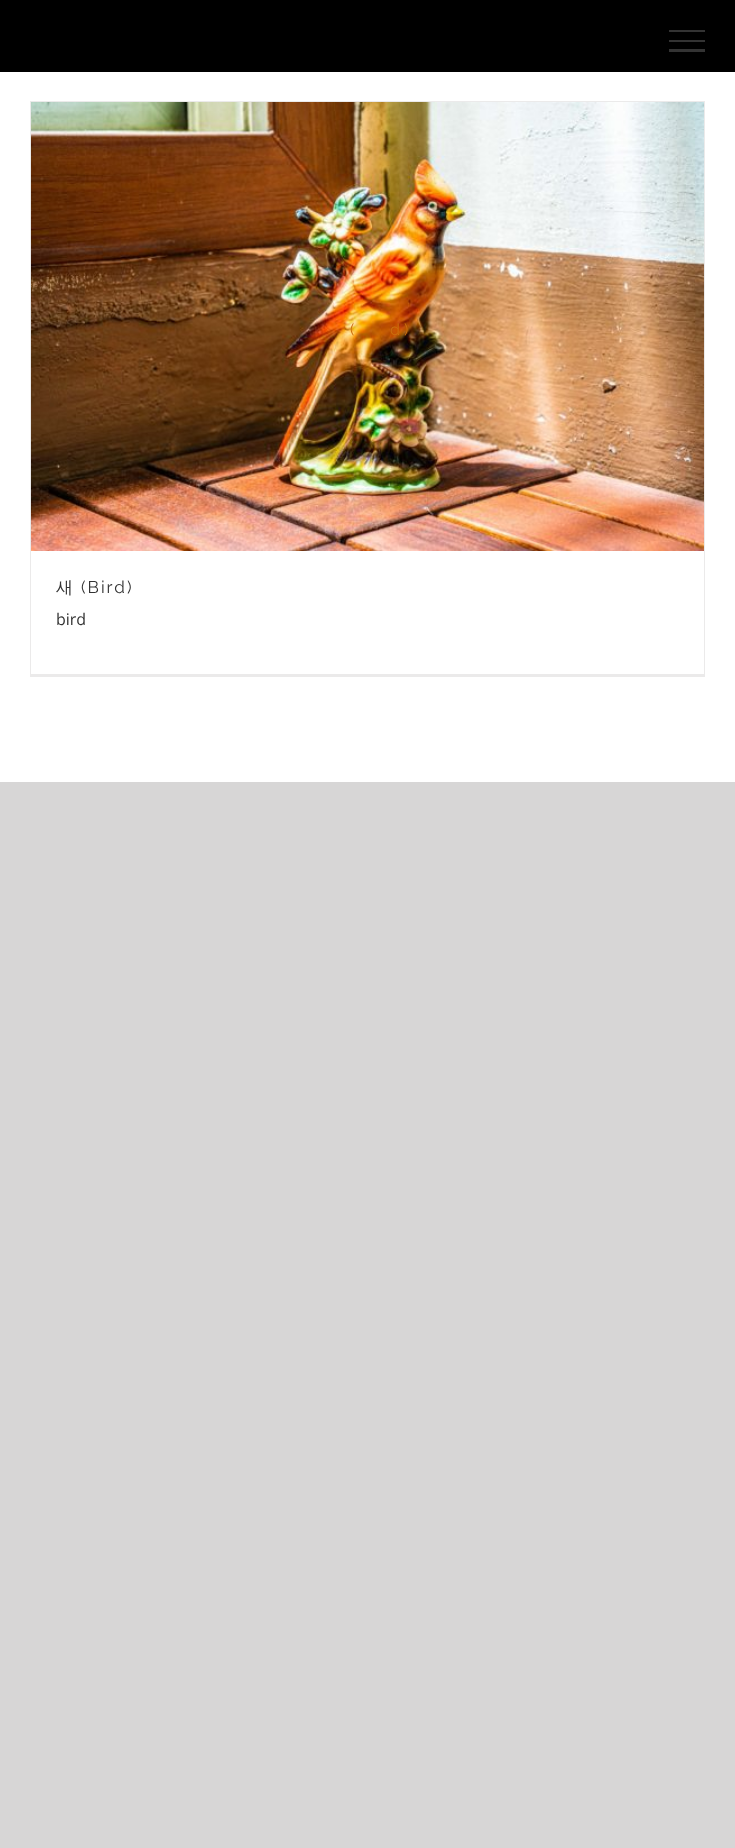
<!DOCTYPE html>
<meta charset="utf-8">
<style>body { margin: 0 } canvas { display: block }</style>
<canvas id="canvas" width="735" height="1848"></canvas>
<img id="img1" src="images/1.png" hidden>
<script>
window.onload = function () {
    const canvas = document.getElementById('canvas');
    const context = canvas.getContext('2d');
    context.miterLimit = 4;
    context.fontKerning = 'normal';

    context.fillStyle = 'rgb(215, 214, 214)';
    context.fillRect(0, 0, 735, 1848);
    context.fillStyle = 'rgb(255, 255, 255)';
    context.fillRect(0, 72, 735, 710);
    context.fillStyle = 'rgb(0, 0, 0)';
    context.fillRect(0, 0, 735, 72);
    context.fillStyle = 'rgb(51, 51, 51)';
    context.fillRect(669, 30, 36, 2);
    context.fillRect(669, 40, 36, 2);
    context.fillRect(669, 49, 36, 3);
    context.fillStyle = 'rgb(235, 234, 234)';
    context.fillRect(30, 101, 675, 1);
    context.fillRect(704, 101, 1, 576);
    context.fillRect(30, 674, 675, 3);
    context.fillRect(30, 101, 1, 576);
    context.drawImage(document.getElementById('img1'), 31, 102, 673, 449);
    context.letterSpacing = '4px';
    context.font = '16px Raleway';
    context.fillStyle = 'rgb(203, 111, 14)';
    context.fillText('(', 350, 335);
    context.fillText('d)', 390, 335);
    context.letterSpacing = '2px';
    context.font = '500 17px WenQuanYi Zen Hei';
    context.fillStyle = 'rgb(51, 51, 51)';
    context.fillText('새', 56, 593);
    context.font = '17px Raleway';
    context.fillText('(Bird)', 81, 593);
    context.letterSpacing = '0px';
    context.font = '16px Open Sans';
    context.fillText('bird', 56, 625);
};
</script>
